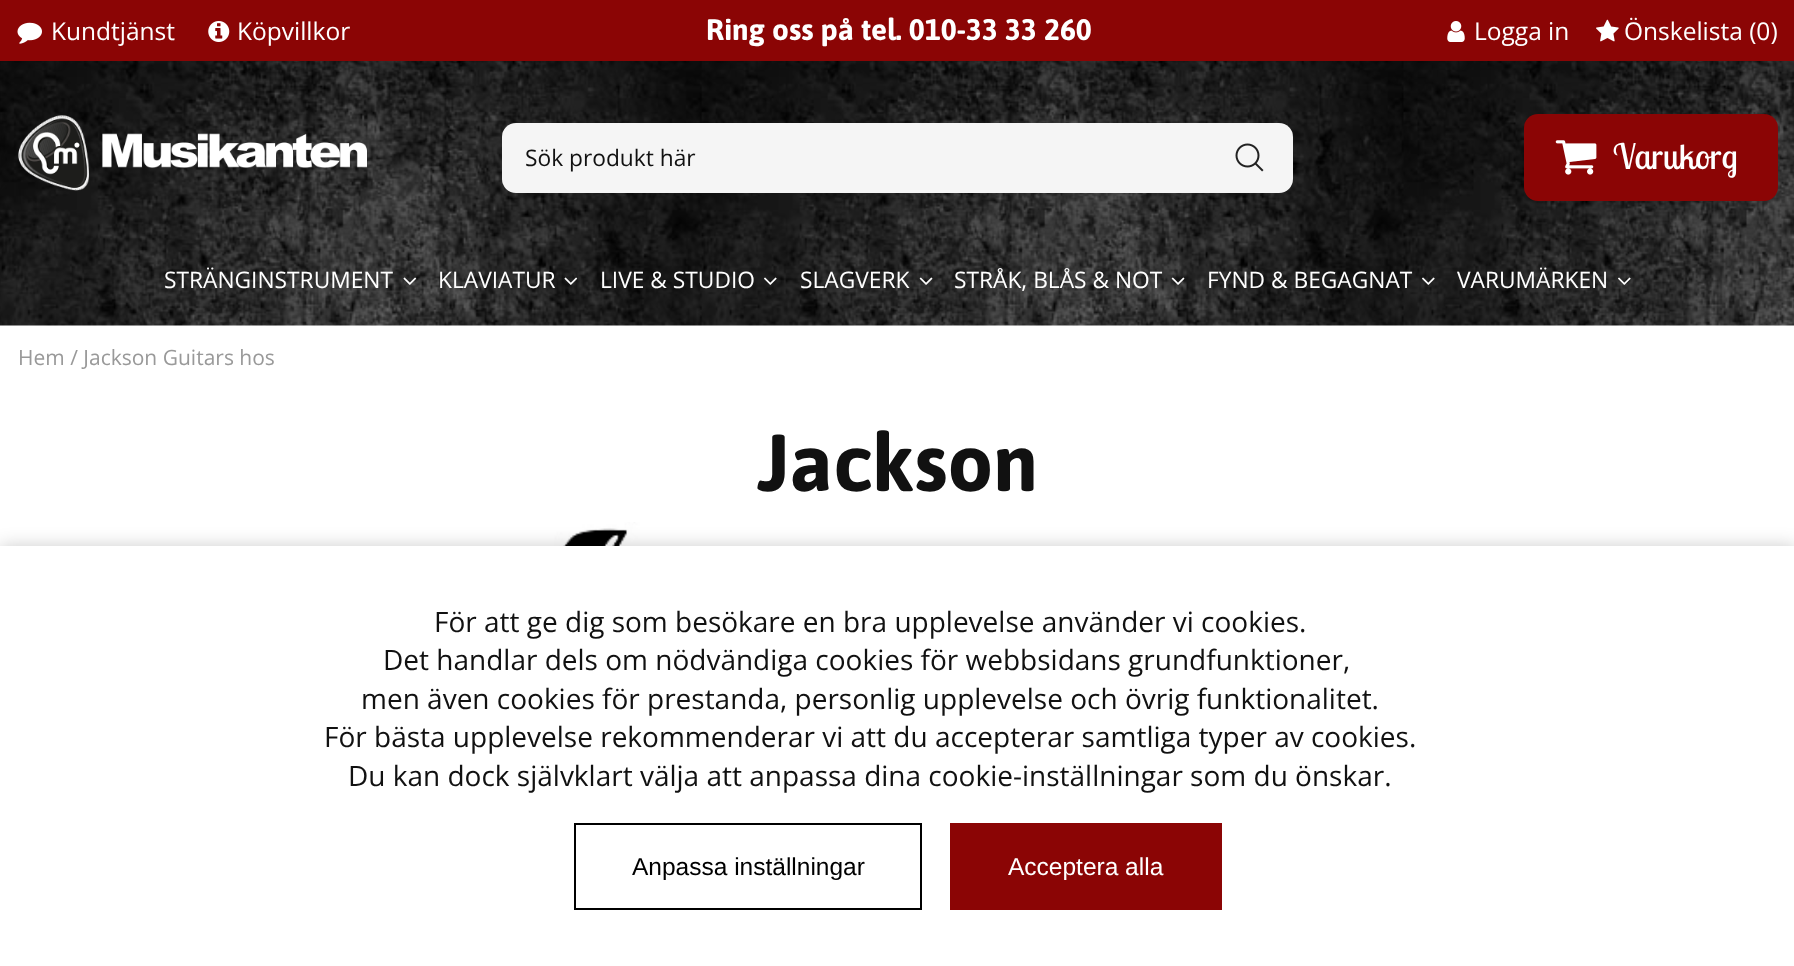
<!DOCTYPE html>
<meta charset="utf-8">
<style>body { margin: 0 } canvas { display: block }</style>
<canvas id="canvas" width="1794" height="966"></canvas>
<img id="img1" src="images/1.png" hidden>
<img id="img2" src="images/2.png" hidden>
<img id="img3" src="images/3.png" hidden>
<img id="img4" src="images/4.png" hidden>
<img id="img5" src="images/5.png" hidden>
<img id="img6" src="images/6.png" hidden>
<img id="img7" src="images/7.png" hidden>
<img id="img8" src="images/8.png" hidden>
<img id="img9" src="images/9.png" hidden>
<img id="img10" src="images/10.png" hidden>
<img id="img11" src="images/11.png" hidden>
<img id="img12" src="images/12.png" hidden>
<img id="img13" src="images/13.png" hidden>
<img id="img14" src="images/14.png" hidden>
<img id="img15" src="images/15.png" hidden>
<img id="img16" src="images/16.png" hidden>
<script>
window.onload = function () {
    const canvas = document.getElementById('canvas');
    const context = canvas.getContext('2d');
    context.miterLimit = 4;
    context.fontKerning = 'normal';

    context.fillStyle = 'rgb(255, 255, 255)';
    context.fillRect(0, 0, 1794, 966);
    context.drawImage(document.getElementById('img1'), 0, 61, 1794, 265);
    context.fillStyle = 'rgb(139, 5, 5)';
    context.fillRect(0, 0, 1794, 61);
    context.drawImage(document.getElementById('img2'), 17, 22, 25, 22);
    context.drawImage(document.getElementById('img3'), 208, 21, 22, 21);
    context.drawImage(document.getElementById('img4'), 1447, 21, 18, 21);
    context.drawImage(document.getElementById('img5'), 1596, 19, 23, 23);
    context.drawImage(document.getElementById('img6'), 18, 115, 349, 76);
    context.fillStyle = 'rgb(245, 245, 245)';
    context.beginPath();
    context.roundRect(502, 123, 791, 70, 14);
    context.fill();
    context.drawImage(document.getElementById('img7'), 1235, 143, 29, 29);
    context.fillStyle = 'rgb(139, 5, 5)';
    context.beginPath();
    context.roundRect(1524, 114, 254, 87, 14);
    context.fill();
    context.drawImage(document.getElementById('img8'), 1555, 140, 42, 35);
    context.drawImage(document.getElementById('img9'), 403, 277, 14, 8);
    context.drawImage(document.getElementById('img10'), 564, 277, 14, 8);
    context.drawImage(document.getElementById('img11'), 764, 277, 13, 8);
    context.drawImage(document.getElementById('img12'), 919, 277, 14, 8);
    context.drawImage(document.getElementById('img13'), 1171, 277, 14, 8);
    context.drawImage(document.getElementById('img14'), 1422, 277, 13, 8);
    context.drawImage(document.getElementById('img15'), 1618, 277, 13, 8);
    context.drawImage(document.getElementById('img16'), 382, 522, 1031, 24);
    context.fillStyle = 'rgba(0, 0, 0, 0.2)';
    context.filter = 'blur(9px)';
    context.beginPath();
    context.rect(0, 546, 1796, 420);
    context.fill();
    context.filter = 'none';
    context.fillStyle = 'rgb(255, 255, 255)';
    context.fillRect(0, 546, 1794, 420);
    context.strokeStyle = 'rgb(0, 0, 0)';
    context.lineWidth = 2;
    context.strokeRect(575, 824, 346, 85);
    context.fillStyle = 'rgb(139, 5, 5)';
    context.fillRect(950, 823, 272, 87);
    context.font = '24.5px Open Sans';
    context.fillStyle = 'rgb(255, 255, 255)';
    context.fillText('Kundtjänst', 51, 40);
    context.fillText('Köpvillkor', 237, 40);
    context.font = 'bold 29.75px Asap';
    context.fillText('Ring oss på tel. 010-33 33 260', 706, 40);
    context.font = '24.5px Open Sans';
    context.fillText('Logga in', 1474, 40);
    context.fillText('Önskelista (0)', 1624, 40);
    context.font = '22.75px Open Sans';
    context.fillStyle = 'rgb(17, 17, 17)';
    context.fillText('Sök produkt här', 525, 166);
    context.font = '35px Lobster Two';
    context.fillStyle = 'rgb(255, 255, 255)';
    context.fillText('Varukorg', 1613, 169);
    context.font = '22.75px Open Sans';
    context.fillText('STRÄNGINSTRUMENT', 164, 288);
    context.fillText('KLAVIATUR', 438, 288);
    context.fillText('LIVE & STUDIO', 600, 288);
    context.fillText('SLAGVERK', 800, 288);
    context.fillText('STRÅK, BLÅS & NOT', 954, 288);
    context.fillText('FYND & BEGAGNAT', 1207, 288);
    context.fillText('VARUMÄRKEN', 1457, 288);
    context.font = '21px Open Sans';
    context.fillStyle = 'rgb(153, 153, 153)';
    context.fillText('Hem / Jackson Guitars hos', 18, 365);
    context.font = 'bold 80.5px Asap';
    context.fillStyle = 'rgb(17, 17, 17)';
    context.fillText('Jackson', 757, 491);
    context.font = '28px Open Sans';
    context.fillText('För att ge dig som besökare en bra upplevelse använder vi cookies.', 434, 632);
    context.fillText('Det handlar dels om nödvändiga cookies för webbsidans grundfunktioner,', 383, 670);
    context.fillText('men även cookies för prestanda, personlig upplevelse och övrig funktionalitet.', 361, 709);
    context.fillText('För bästa upplevelse rekommenderar vi att du accepterar samtliga typer av cookies.', 324, 747);
    context.fillText('Du kan dock självklart välja att anpassa dina cookie-inställningar som du önskar.', 348, 786);
    context.font = '24.5px Liberation Sans';
    context.fillStyle = 'rgb(0, 0, 0)';
    context.fillText('Anpassa inställningar', 632, 875);
    context.fillStyle = 'rgb(255, 255, 255)';
    context.fillText('Acceptera alla', 1008, 875);
};
</script>
